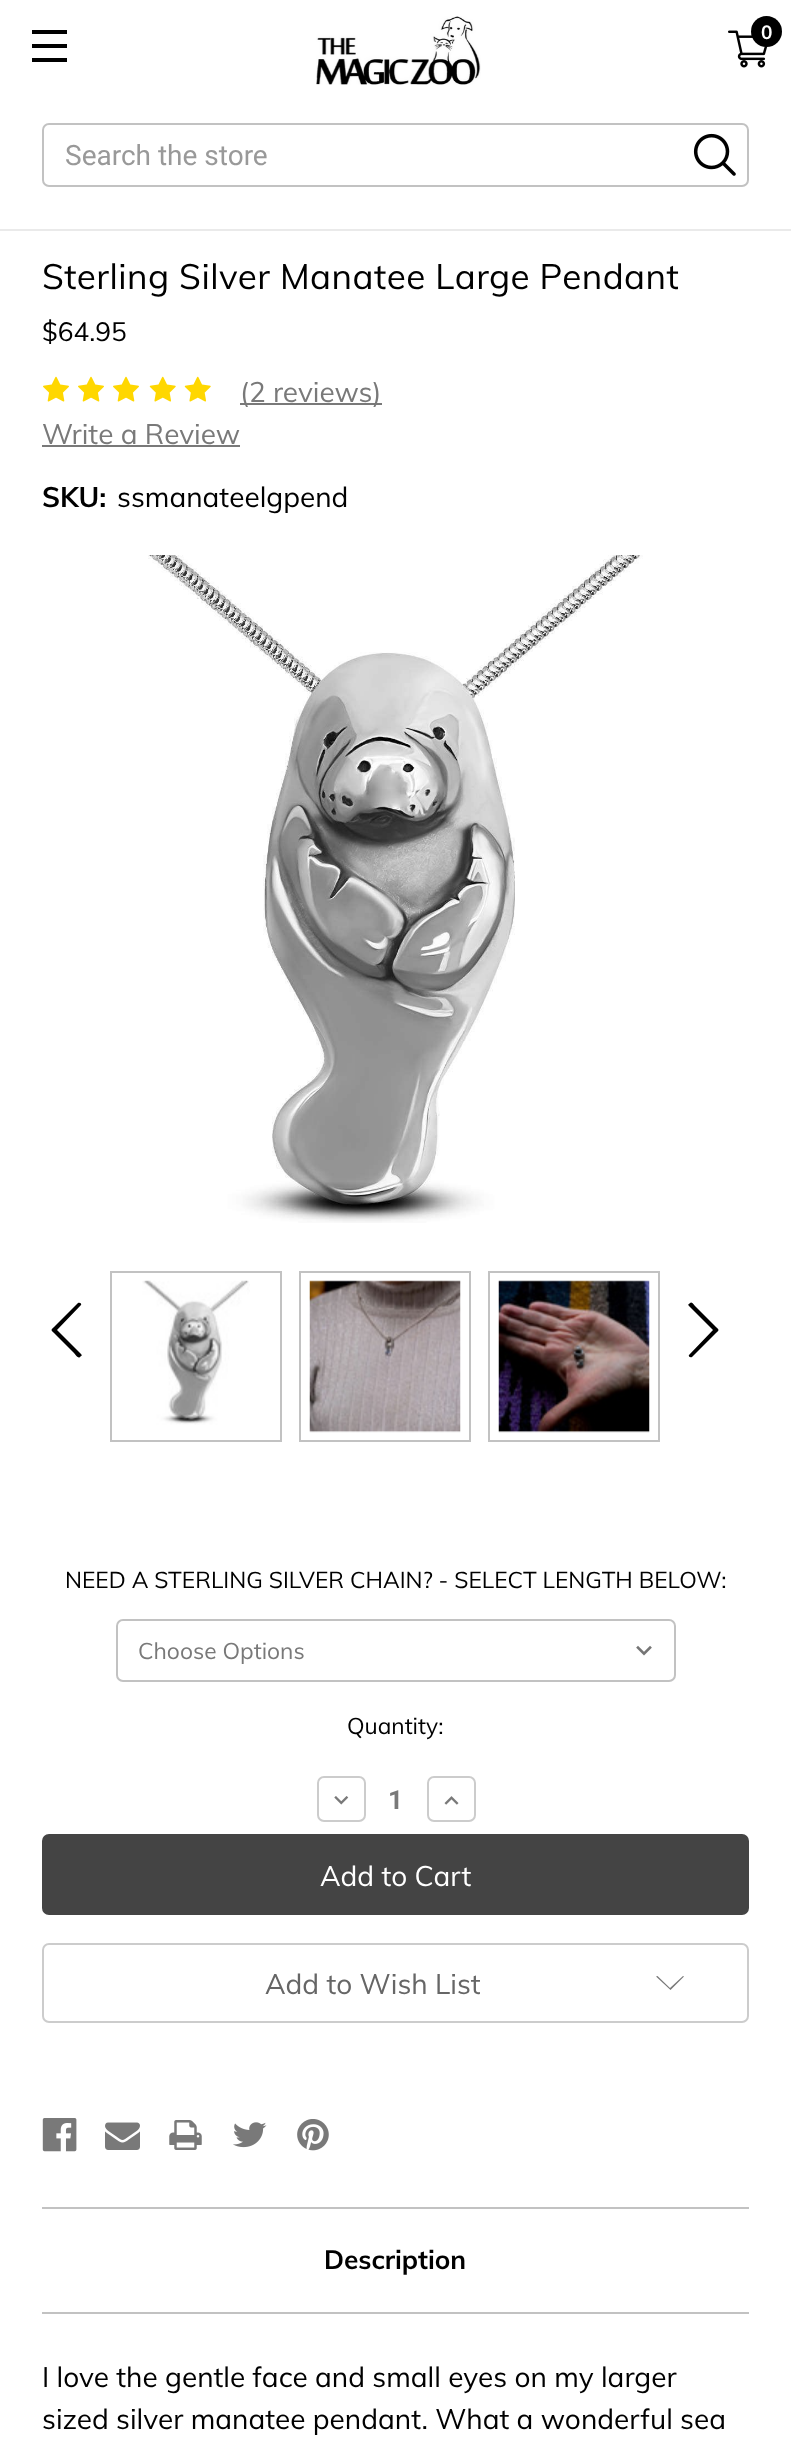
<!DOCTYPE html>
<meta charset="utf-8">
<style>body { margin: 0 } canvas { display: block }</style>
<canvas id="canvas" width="791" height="2452"></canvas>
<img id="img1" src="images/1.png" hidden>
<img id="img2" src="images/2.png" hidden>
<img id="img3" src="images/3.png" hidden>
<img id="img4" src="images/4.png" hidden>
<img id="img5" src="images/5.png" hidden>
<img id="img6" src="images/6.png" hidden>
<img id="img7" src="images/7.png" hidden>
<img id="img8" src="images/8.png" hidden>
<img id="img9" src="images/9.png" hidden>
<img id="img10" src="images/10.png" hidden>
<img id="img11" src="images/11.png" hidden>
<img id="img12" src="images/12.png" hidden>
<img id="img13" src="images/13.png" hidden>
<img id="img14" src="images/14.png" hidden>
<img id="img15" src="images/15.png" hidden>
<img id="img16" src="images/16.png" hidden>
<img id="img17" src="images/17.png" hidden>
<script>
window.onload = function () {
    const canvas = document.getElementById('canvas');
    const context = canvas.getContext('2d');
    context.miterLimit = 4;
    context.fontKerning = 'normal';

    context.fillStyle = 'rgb(255, 255, 255)';
    context.fillRect(0, 0, 791, 2452);
    context.fillStyle = 'rgb(0, 0, 0)';
    context.fillRect(32, 44, 35, 4);
    context.fillRect(32, 30, 35, 4);
    context.fillRect(32, 58, 35, 4);
    context.drawImage(document.getElementById('img1'), 316, 16, 165, 69);
    context.drawImage(document.getElementById('img2'), 728, 30, 40, 38);
    context.beginPath();
    context.arc(766.5, 31.5, 15.5, 0, 2 * Math.PI);
    context.fill();
    context.fillStyle = 'rgb(234, 234, 234)';
    context.fillRect(0, 229, 791, 2);
    context.beginPath();
    context.roundRect(43, 124, 705, 62, 6);
    context.strokeStyle = 'rgb(194, 194, 194)';
    context.lineWidth = 2;
    context.stroke();
    context.drawImage(document.getElementById('img3'), 693, 133, 43, 43);
    context.drawImage(document.getElementById('img4'), 43, 376, 26, 26);
    context.drawImage(document.getElementById('img4'), 78, 376, 26, 26);
    context.drawImage(document.getElementById('img4'), 113, 376, 26, 26);
    context.drawImage(document.getElementById('img5'), 149, 376, 27, 26);
    context.drawImage(document.getElementById('img5'), 184, 376, 27, 26);
    context.fillStyle = 'rgb(121, 121, 121)';
    context.fillRect(240, 403, 142, 2);
    context.fillRect(42, 445, 198, 2);
    context.drawImage(document.getElementById('img6'), 148, 555, 495, 668);
    context.fillStyle = 'rgb(0, 0, 0)';
    context.beginPath();
    context.moveTo(80, 1357);
    context.lineTo(81, 1356);
    context.bezierCurveTo(82, 1356, 82, 1355, 81, 1354);
    context.lineTo(57, 1330);
    context.lineTo(81, 1305);
    context.bezierCurveTo(82, 1304, 80, 1302, 78, 1303);
    context.lineTo(56, 1325);
    context.bezierCurveTo(50, 1331, 50, 1329, 56, 1335);
    context.lineTo(74, 1353);
    context.bezierCurveTo(76, 1355, 78, 1359, 80, 1357);
    context.closePath();
    context.fill();
    context.strokeRect(111, 1272, 170, 169);
    context.drawImage(document.getElementById('img7'), 142, 1280, 108, 145);
    context.strokeRect(300, 1272, 170, 169);
    context.drawImage(document.getElementById('img8'), 309, 1280, 152, 153);
    context.strokeRect(489, 1272, 170, 169);
    context.drawImage(document.getElementById('img9'), 498, 1280, 152, 153);
    context.beginPath();
    context.moveTo(690, 1303);
    context.lineTo(689, 1304);
    context.bezierCurveTo(688, 1304, 688, 1305, 689, 1306);
    context.lineTo(713, 1330);
    context.lineTo(689, 1355);
    context.bezierCurveTo(688, 1356, 690, 1358, 692, 1357);
    context.lineTo(714, 1335);
    context.bezierCurveTo(720, 1329, 720, 1331, 714, 1325);
    context.lineTo(696, 1307);
    context.bezierCurveTo(694, 1305, 692, 1301, 690, 1303);
    context.closePath();
    context.fill();
    context.drawImage(document.getElementById('img10'), 636, 1645, 16, 11);
    context.beginPath();
    context.roundRect(117, 1620, 558, 61, 6);
    context.stroke();
    context.beginPath();
    context.roundRect(318, 1777, 47, 44, 6);
    context.strokeStyle = 'rgb(204, 204, 204)';
    context.stroke();
    context.drawImage(document.getElementById('img11'), 334, 1796, 15, 9);
    context.beginPath();
    context.roundRect(428, 1777, 47, 44, 6);
    context.stroke();
    context.drawImage(document.getElementById('img12'), 444, 1796, 15, 9);
    context.fillStyle = 'rgb(68, 68, 68)';
    context.beginPath();
    context.roundRect(43, 1835, 705, 79, 6);
    context.fill();
    context.strokeStyle = 'rgb(68, 68, 68)';
    context.stroke();
    context.beginPath();
    context.roundRect(43, 1944, 705, 78, 6);
    context.strokeStyle = 'rgb(204, 204, 204)';
    context.stroke();
    context.fillStyle = 'rgb(121, 121, 121)';
    context.beginPath();
    context.moveTo(670, 1988);
    context.lineTo(683, 1976);
    context.lineTo(684, 1976.5);
    context.lineTo(670.5, 1990);
    context.lineTo(656, 1976.5);
    context.lineTo(657.5, 1976);
    context.closePath();
    context.fill('evenodd');
    context.drawImage(document.getElementById('img13'), 42, 2118, 35, 34);
    context.drawImage(document.getElementById('img14'), 105, 2122, 35, 28);
    context.drawImage(document.getElementById('img15'), 169, 2120, 33, 30);
    context.drawImage(document.getElementById('img16'), 233, 2122, 34, 26);
    context.drawImage(document.getElementById('img17'), 297, 2119, 32, 32);
    context.fillStyle = 'rgb(194, 194, 194)';
    context.fillRect(42, 2312, 707, 2);
    context.fillRect(42, 2207, 707, 2);
    context.font = 'bold 19px Muli';
    context.fillStyle = 'rgb(255, 255, 255)';
    context.fillText('0', 761, 39);
    context.font = '28px Roboto';
    context.fillStyle = 'rgb(153, 153, 153)';
    context.fillText('Search the store', 65, 165);
    context.letterSpacing = '0.45px';
    context.font = '35px Muli';
    context.fillStyle = 'rgb(0, 0, 0)';
    context.fillText('Sterling Silver Manatee Large Pendant', 42, 289);
    context.letterSpacing = '0px';
    context.font = '26.25px Muli';
    context.fillText('$64.95', 42, 341);
    context.font = '28px Muli';
    context.fillStyle = 'rgb(121, 121, 121)';
    context.fillText('(2 reviews)', 240, 402);
    context.fillText('Write a Review', 42, 444);
    context.font = 'bold 28px Muli';
    context.fillStyle = 'rgb(0, 0, 0)';
    context.fillText('SKU:', 42, 507);
    context.font = '28px Muli';
    context.fillText('ssmanateelgpend', 117, 507);
    context.font = '22.75px Muli';
    context.fillText('NEED A STERLING SILVER CHAIN? - SELECT LENGTH BELOW:', 65, 1588);
    context.fillStyle = 'rgb(121, 121, 121)';
    context.fillText('Choose Options', 138, 1659);
    context.fillStyle = 'rgb(0, 0, 0)';
    context.fillText('Quantity:', 347, 1734);
    context.font = 'bold 26.25px Roboto';
    context.fillStyle = 'rgb(121, 121, 121)';
    context.fillText('1', 388, 1809);
    context.font = '28px Muli';
    context.fillStyle = 'rgb(255, 255, 255)';
    context.fillText('Add to Cart', 320, 1886);
    context.fillStyle = 'rgb(102, 102, 102)';
    context.fillText('Add to Wish List', 265, 1994);
    context.font = 'bold 26.25px Muli';
    context.fillStyle = 'rgb(0, 0, 0)';
    context.fillText('Description', 324, 2269);
    context.font = '28px Muli';
    context.fillText('I love the gentle face and small eyes on my larger', 42, 2387);
    context.fillText('sized silver manatee pendant. What a wonderful sea', 42, 2429);
};
</script>
